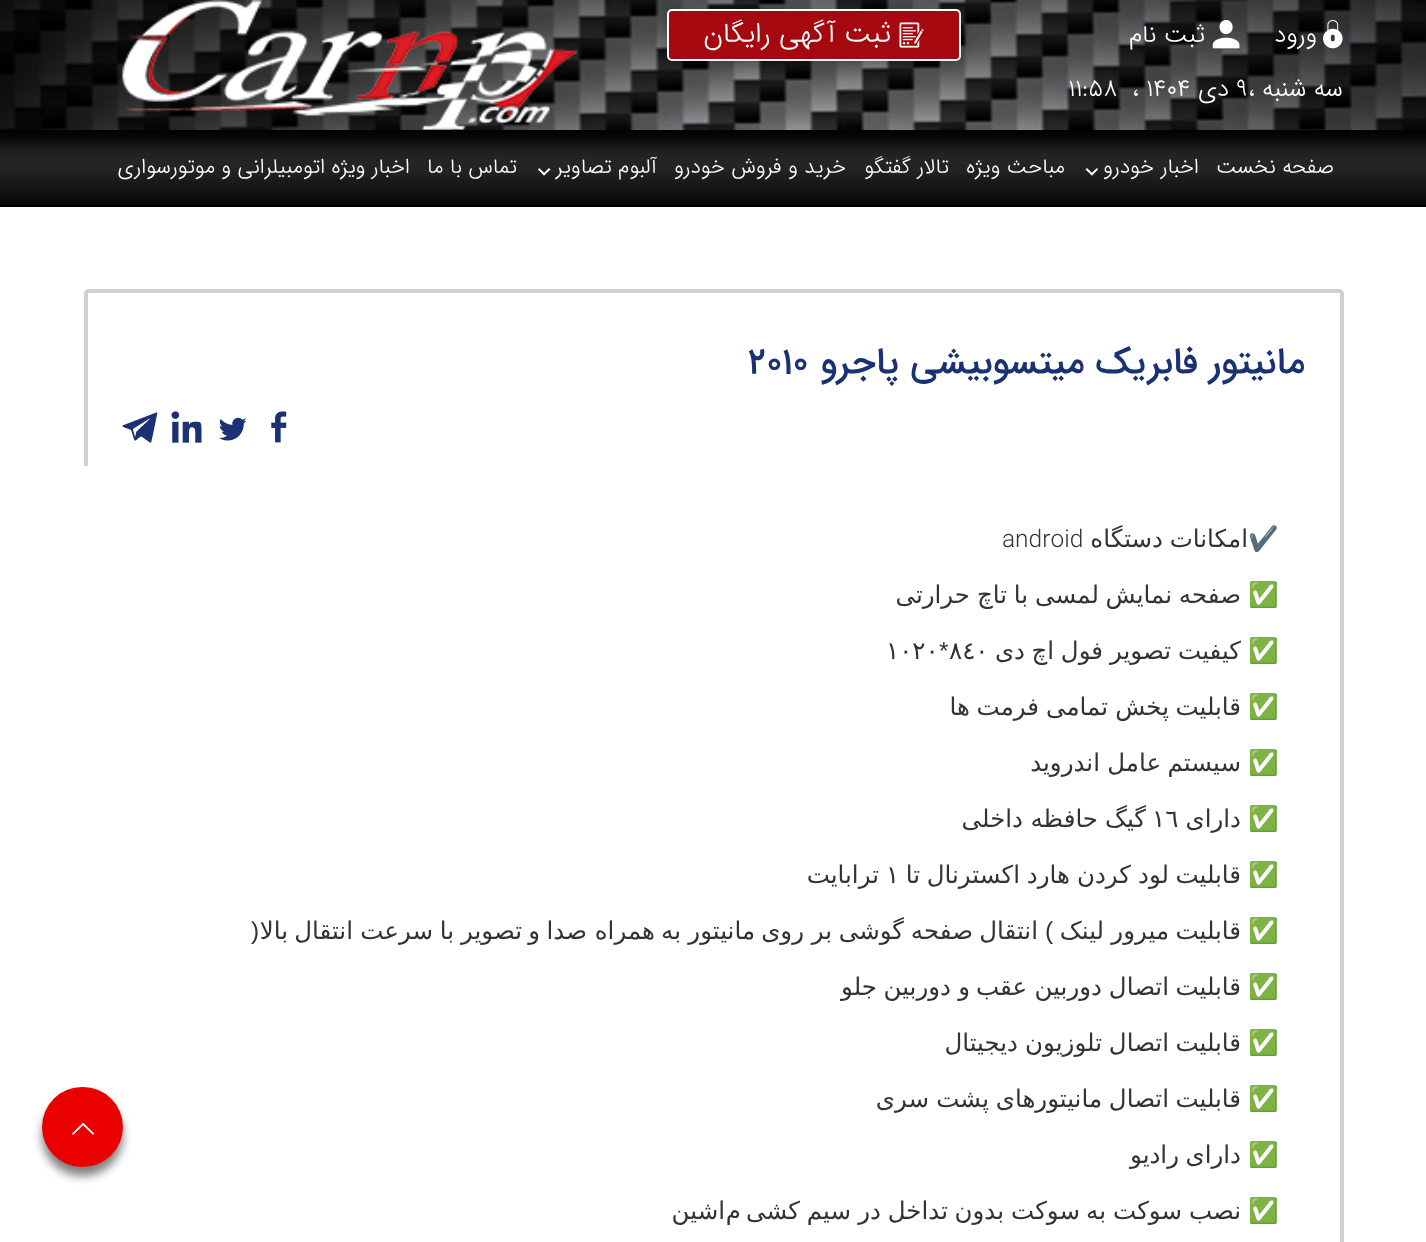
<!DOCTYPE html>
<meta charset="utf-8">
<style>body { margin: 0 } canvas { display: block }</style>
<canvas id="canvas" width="1426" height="1242"></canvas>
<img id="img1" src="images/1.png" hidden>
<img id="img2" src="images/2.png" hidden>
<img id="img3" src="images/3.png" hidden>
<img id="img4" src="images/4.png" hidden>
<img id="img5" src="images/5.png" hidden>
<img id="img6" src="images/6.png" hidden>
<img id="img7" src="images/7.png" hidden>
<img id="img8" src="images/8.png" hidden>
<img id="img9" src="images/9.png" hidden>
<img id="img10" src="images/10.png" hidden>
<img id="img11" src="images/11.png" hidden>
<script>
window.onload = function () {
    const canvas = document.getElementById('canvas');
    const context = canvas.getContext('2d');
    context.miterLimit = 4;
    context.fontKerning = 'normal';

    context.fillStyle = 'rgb(255, 255, 255)';
    context.fillRect(0, 0, 1426, 1242);
    context.fillStyle = 'rgb(0, 0, 0)';
    context.fillRect(0, 205, 1426, 2);
    context.drawImage(document.getElementById('img1'), 0, 0, 1426, 130);
    context.drawImage(document.getElementById('img2'), 1323, 19, 20, 30);
    context.drawImage(document.getElementById('img3'), 1212, 20, 28, 29);
    context.fillStyle = 'rgba(0, 0, 0, 0.3)';
    context.filter = 'blur(9px)';
    context.beginPath();
    context.roundRect(667, 11, 294, 52, 5);
    context.fill();
    context.filter = 'none';
    context.fillStyle = 'rgb(165, 8, 14)';
    context.beginPath();
    context.roundRect(668, 10, 292, 50, 4);
    context.fill();
    context.strokeStyle = 'rgb(255, 255, 255)';
    context.lineWidth = 2;
    context.stroke();
    context.drawImage(document.getElementById('img4'), 899, 22, 25, 26);
    context.drawImage(document.getElementById('img5'), 122, 0, 456, 130);
    context.drawImage(document.getElementById('img6'), 0, 130, 1426, 75);
    context.fillStyle = 'rgb(255, 255, 255)';
    context.beginPath();
    context.moveTo(1097, 168);
    context.lineTo(1098, 169.5);
    context.lineTo(1092, 175.5);
    context.lineTo(1090.5, 174);
    context.closePath();
    context.fill();
    context.beginPath();
    context.moveTo(1087, 168);
    context.lineTo(1093, 174);
    context.lineTo(1092, 175.5);
    context.lineTo(1085.5, 169.5);
    context.closePath();
    context.fill();
    context.beginPath();
    context.moveTo(549, 168);
    context.lineTo(550.5, 169.5);
    context.lineTo(544, 175.5);
    context.lineTo(543, 174);
    context.closePath();
    context.fill();
    context.beginPath();
    context.moveTo(539, 168);
    context.lineTo(545.5, 174);
    context.lineTo(544, 175.5);
    context.lineTo(538, 169.5);
    context.closePath();
    context.fill();
    context.beginPath();
    context.roundRect(86, 291, 1256, 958, 3);
    context.strokeStyle = 'rgb(208, 208, 208)';
    context.lineWidth = 4;
    context.stroke();
    context.drawImage(document.getElementById('img7'), 271, 411, 16, 32);
    context.drawImage(document.getElementById('img8'), 219, 417, 28, 24);
    context.drawImage(document.getElementById('img9'), 171, 411, 31, 32);
    context.drawImage(document.getElementById('img10'), 122, 412, 36, 31);
    context.fillRect(84, 466, 4, 776);
    context.fillStyle = 'rgba(0, 0, 0, 0.5)';
    context.filter = 'blur(5px)';
    context.beginPath();
    context.roundRect(42, 1096, 81, 80, 40);
    context.fill();
    context.filter = 'none';
    context.fillStyle = 'rgb(234, 0, 0)';
    context.beginPath();
    context.roundRect(42, 1087, 81, 80, 40);
    context.fill();
    context.drawImage(document.getElementById('img11'), 72, 1122, 23, 13);
    context.direction = 'rtl';
    context.font = '300 24.5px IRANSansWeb';
    context.fillStyle = 'rgb(255, 255, 255)';
    context.fillText('ورود', 1317, 42);
    context.fillText('ثبت نام', 1205, 42);
    context.font = '300 28px IRANSansWeb';
    context.fillText('ثبت آگهی رایگان', 891, 42);
    context.font = '300 24.5px IRANSansWeb';
    context.fillText('سه شنبه ،', 1343, 96);
    context.direction = 'ltr';
    context.fillText('۹', 1236, 96);
    context.direction = 'rtl';
    context.fillText('دی', 1229, 96);
    context.direction = 'ltr';
    context.fillText('۱۴۰۴', 1146, 96);
    context.fillText('،', 1132, 96);
    context.fillText('۱۱:۵۸', 1068, 96);
    context.direction = 'rtl';
    context.font = '300 21px IRANSansWeb';
    context.fillText('صفحه نخست', 1334, 173);
    context.fillText('اخبار', 1199, 173);
    context.fillText('خودرو', 1154, 173);
    context.fillText('مباحث ویژه', 1065, 173);
    context.fillText('تالار گفتگو', 949, 173);
    context.fillText('خرید و فروش خودرو', 846, 173);
    context.fillText('آلبوم تصاویر', 657, 173);
    context.fillText('تماس با ما', 517, 173);
    context.fillText('اخبار ویژه اتومبیلرانی و موتورسواری', 410, 173);
    context.font = '500 36.75px IRANSansWeb';
    context.fillStyle = 'rgb(26, 49, 115)';
    context.fillText('مانیتور فابریک میتسوبیشی پاجرو', 1305, 373);
    context.direction = 'ltr';
    context.fillText('٢٠١٠', 748, 373);
    context.font = '24.5px Noto Color Emoji';
    context.fillStyle = 'rgb(51, 51, 51)';
    context.fillText('✔️', 1248, 547);
    context.direction = 'rtl';
    context.font = '24.5px DejaVu Sans';
    context.fillText('امکانات', 1248, 547);
    context.fillText('دستگاه', 1163, 547);
    context.direction = 'ltr';
    context.font = '300 24.5px IRANSansWeb';
    context.fillText('android', 1002, 547);
    context.font = '24.5px Noto Color Emoji';
    context.fillText('✅', 1248, 603);
    context.direction = 'rtl';
    context.font = '24.5px DejaVu Sans';
    context.fillText('صفحه', 1241, 603);
    context.fillText('نمایش', 1172, 603);
    context.fillText('لمسی', 1099, 603);
    context.fillText('با', 1028, 603);
    context.fillText('تاچ', 1007, 603);
    context.fillText('حرارتی', 970, 603);
    context.direction = 'ltr';
    context.font = '24.5px Noto Color Emoji';
    context.fillText('✅', 1248, 659);
    context.direction = 'rtl';
    context.font = '24.5px DejaVu Sans';
    context.fillText('کیفیت', 1241, 659);
    context.fillText('تصویر', 1171, 659);
    context.fillText('فول', 1103, 659);
    context.fillText('اچ', 1054, 659);
    context.fillText('دی', 1025, 659);
    context.direction = 'ltr';
    context.fillText('٨٤٠', 949, 659);
    context.font = '24.5px Liberation Sans';
    context.fillText('*', 939, 659);
    context.font = '24.5px DejaVu Sans';
    context.fillText('١٠٢٠', 886, 659);
    context.font = '24.5px Noto Color Emoji';
    context.fillText('✅', 1248, 715);
    context.direction = 'rtl';
    context.font = '24.5px DejaVu Sans';
    context.fillText('قابلیت', 1241, 715);
    context.fillText('پخش', 1169, 715);
    context.fillText('تمامی', 1108, 715);
    context.fillText('فرمت', 1039, 715);
    context.fillText('ها', 970, 715);
    context.direction = 'ltr';
    context.font = '24.5px Noto Color Emoji';
    context.fillText('✅', 1248, 771);
    context.direction = 'rtl';
    context.font = '24.5px DejaVu Sans';
    context.fillText('سیستم', 1241, 771);
    context.fillText('عامل', 1161, 771);
    context.fillText('اندروید', 1100, 771);
    context.direction = 'ltr';
    context.font = '24.5px Noto Color Emoji';
    context.fillText('✅', 1248, 827);
    context.direction = 'rtl';
    context.font = '24.5px DejaVu Sans';
    context.fillText('دارای', 1241, 827);
    context.direction = 'ltr';
    context.fillText('١٦', 1152, 827);
    context.direction = 'rtl';
    context.fillText('گیگ', 1146, 827);
    context.fillText('حافظه', 1098, 827);
    context.fillText('داخلی', 1023, 827);
    context.direction = 'ltr';
    context.font = '24.5px Noto Color Emoji';
    context.fillText('✅', 1248, 883);
    context.direction = 'rtl';
    context.font = '24.5px DejaVu Sans';
    context.fillText('قابلیت', 1241, 883);
    context.fillText('لود', 1169, 883);
    context.fillText('کردن', 1131, 883);
    context.fillText('هارد', 1070, 883);
    context.fillText('اکسترنال', 1020, 883);
    context.fillText('تا', 920, 883);
    context.direction = 'ltr';
    context.fillText('١', 886, 883);
    context.direction = 'rtl';
    context.fillText('ترابایت', 879, 883);
    context.direction = 'ltr';
    context.font = '24.5px Noto Color Emoji';
    context.fillText('✅', 1248, 939);
    context.direction = 'rtl';
    context.font = '24.5px DejaVu Sans';
    context.fillText('قابلیت', 1241, 939);
    context.fillText('میرور', 1169, 939);
    context.fillText('لینک', 1104, 939);
    context.direction = 'ltr';
    context.font = '24.5px Liberation Sans';
    context.fillText('(', 1045, 939);
    context.direction = 'rtl';
    context.font = '24.5px DejaVu Sans';
    context.fillText('انتقال', 1038, 939);
    context.fillText('صفحه', 973, 939);
    context.fillText('گوشی', 904, 939);
    context.fillText('بر', 832, 939);
    context.fillText('روی', 804, 939);
    context.fillText('مانیتور', 755, 939);
    context.fillText('به', 681, 939);
    context.fillText('همراه', 655, 939);
    context.fillText('صدا', 587, 939);
    context.fillText('و', 540, 939);
    context.fillText('تصویر', 522, 939);
    context.fillText('با', 454, 939);
    context.fillText('سرعت', 433, 939);
    context.fillText('انتقال', 353, 939);
    context.fillText('بالا', 288, 939);
    context.direction = 'ltr';
    context.font = '24.5px Liberation Sans';
    context.fillText(')', 251, 939);
    context.font = '24.5px Noto Color Emoji';
    context.fillText('✅', 1248, 995);
    context.direction = 'rtl';
    context.font = '24.5px DejaVu Sans';
    context.fillText('قابلیت', 1241, 995);
    context.fillText('اتصال', 1169, 995);
    context.fillText('دوربین', 1102, 995);
    context.fillText('عقب', 1027, 995);
    context.fillText('و', 970, 995);
    context.fillText('دوربین', 951, 995);
    context.fillText('جلو', 877, 995);
    context.direction = 'ltr';
    context.font = '24.5px Noto Color Emoji';
    context.fillText('✅', 1248, 1051);
    context.direction = 'rtl';
    context.font = '24.5px DejaVu Sans';
    context.fillText('قابلیت', 1241, 1051);
    context.fillText('اتصال', 1169, 1051);
    context.fillText('تلوزیون', 1102, 1051);
    context.fillText('دیجیتال', 1018, 1051);
    context.direction = 'ltr';
    context.font = '24.5px Noto Color Emoji';
    context.fillText('✅', 1248, 1107);
    context.direction = 'rtl';
    context.font = '24.5px DejaVu Sans';
    context.fillText('قابلیت', 1241, 1107);
    context.fillText('اتصال', 1169, 1107);
    context.fillText('مانیتورهای', 1102, 1107);
    context.fillText('پشت', 989, 1107);
    context.fillText('سری', 929, 1107);
    context.direction = 'ltr';
    context.font = '24.5px Noto Color Emoji';
    context.fillText('✅', 1248, 1163);
    context.direction = 'rtl';
    context.font = '24.5px DejaVu Sans';
    context.fillText('دارای', 1241, 1163);
    context.fillText('رادیو', 1179, 1163);
    context.direction = 'ltr';
    context.font = '24.5px Noto Color Emoji';
    context.fillText('✅', 1248, 1219);
    context.direction = 'rtl';
    context.font = '24.5px DejaVu Sans';
    context.fillText('نصب', 1241, 1219);
    context.fillText('سوکت', 1182, 1219);
    context.fillText('به', 1106, 1219);
    context.fillText('سوکت', 1080, 1219);
    context.fillText('بدون', 1004, 1219);
    context.fillText('تداخل', 948, 1219);
    context.fillText('در', 881, 1219);
    context.fillText('سیم', 851, 1219);
    context.fillText('کشی', 800, 1219);
    context.fillText('م', 741, 1219);
    context.fillText('اشین', 725, 1219);
};
</script>
